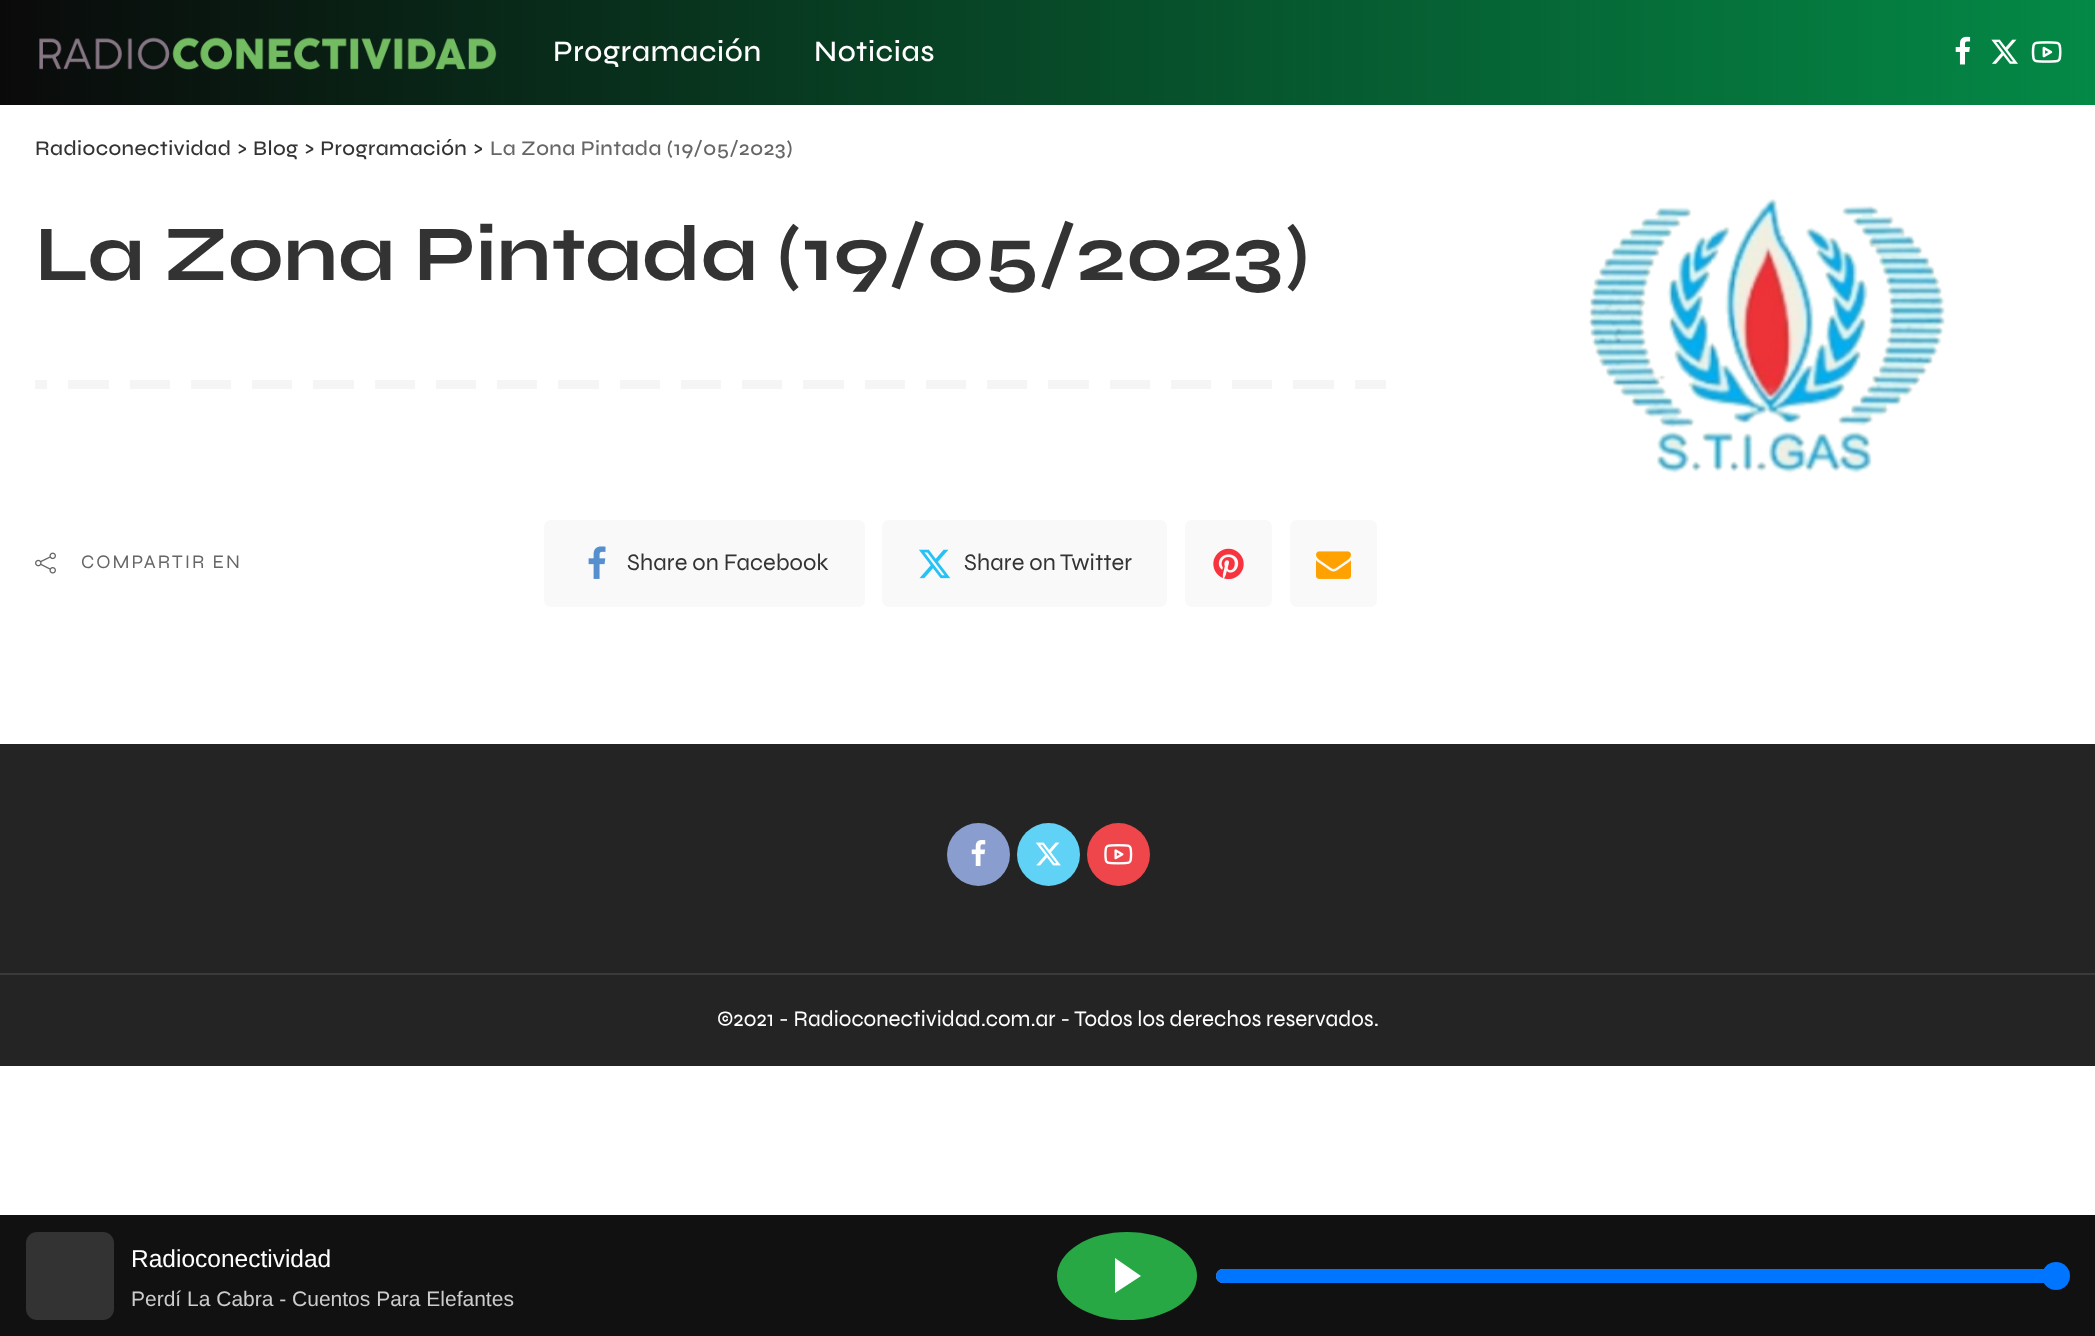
<!DOCTYPE html>
<meta charset="utf-8">
<style>body { margin: 0 } canvas { display: block }</style>
<canvas id="canvas" width="2095" height="1336"></canvas>
<img id="img1" src="images/1.png" hidden>
<img id="img2" src="images/2.png" hidden>
<img id="img3" src="images/3.png" hidden>
<img id="img4" src="images/4.png" hidden>
<img id="img5" src="images/5.png" hidden>
<img id="img6" src="images/6.png" hidden>
<img id="img7" src="images/7.png" hidden>
<img id="img8" src="images/8.png" hidden>
<img id="img9" src="images/9.png" hidden>
<img id="img10" src="images/10.png" hidden>
<img id="img11" src="images/11.png" hidden>
<img id="img12" src="images/12.png" hidden>
<img id="img13" src="images/13.png" hidden>
<img id="img14" src="images/14.png" hidden>
<script>
window.onload = function () {
    const canvas = document.getElementById('canvas');
    const context = canvas.getContext('2d');
    context.miterLimit = 4;
    context.fontKerning = 'normal';
    let gradient;

    context.fillStyle = 'rgb(255, 255, 255)';
    context.fillRect(0, 0, 2095, 1336);
    gradient = context.createLinearGradient(0, 53, 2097, 52);
    gradient.addColorStop(0, 'rgb(10, 10, 10)');
    gradient.addColorStop(1, 'rgb(4, 137, 70)');
    context.fillStyle = gradient;
    context.fillRect(0, 0, 2095, 105);
    context.drawImage(document.getElementById('img1'), 39, 37, 458, 33);
    context.drawImage(document.getElementById('img2'), 1955, 36, 16, 29);
    context.drawImage(document.getElementById('img3'), 1991, 39, 27, 25);
    context.drawImage(document.getElementById('img4'), 2031, 41, 31, 22);
    context.drawImage(document.getElementById('img5'), 35, 380, 1351, 9);
    context.drawImage(document.getElementById('img6'), 35, 552, 21, 22);
    context.fillStyle = 'rgb(249, 249, 249)';
    context.beginPath();
    context.roundRect(544, 520, 321, 87, 7);
    context.fill();
    context.drawImage(document.getElementById('img7'), 588, 546, 18, 33);
    context.beginPath();
    context.roundRect(882, 520, 285, 87, 7);
    context.fill();
    context.drawImage(document.getElementById('img8'), 919, 549, 32, 30);
    context.beginPath();
    context.roundRect(1185, 520, 87, 87, 7);
    context.fill();
    context.drawImage(document.getElementById('img9'), 1213, 548, 31, 32);
    context.beginPath();
    context.roundRect(1290, 520, 87, 87, 7);
    context.fill();
    context.drawImage(document.getElementById('img10'), 1316, 551, 35, 28);
    context.drawImage(document.getElementById('img11'), 1588, 199, 357, 275);
    context.fillStyle = 'rgb(36, 36, 36)';
    context.fillRect(0, 744, 2095, 322);
    context.fillStyle = 'rgb(137, 157, 206)';
    context.beginPath();
    context.arc(978.5, 854.5, 31.5, 0, 2 * Math.PI);
    context.fill();
    context.drawImage(document.getElementById('img12'), 971, 840, 15, 26);
    context.fillStyle = 'rgb(96, 210, 245)';
    context.beginPath();
    context.arc(1048.5, 854.5, 31.5, 0, 2 * Math.PI);
    context.fill();
    context.drawImage(document.getElementById('img13'), 1035, 842, 26, 24);
    context.fillStyle = 'rgb(239, 70, 75)';
    context.beginPath();
    context.arc(1118.5, 854.5, 31.5, 0, 2 * Math.PI);
    context.fill();
    context.drawImage(document.getElementById('img14'), 1104, 844, 29, 21);
    context.fillStyle = 'rgb(58, 58, 58)';
    context.fillRect(0, 973, 2095, 2);
    context.fillStyle = 'rgb(17, 17, 17)';
    context.fillRect(0, 1215, 2095, 121);
    context.fillStyle = 'rgb(51, 51, 51)';
    context.beginPath();
    context.roundRect(26, 1232, 88, 88, 11);
    context.fill();
    context.fillStyle = 'rgb(40, 167, 69)';
    context.beginPath();
    context.ellipse(1127, 1276, 70, 44, 0, 0, 2 * Math.PI);
    context.fill();
    context.fillStyle = 'rgb(255, 255, 255)';
    context.beginPath();
    context.moveTo(1115, 1293);
    context.lineTo(1115, 1258);
    context.lineTo(1141, 1276);
    context.closePath();
    context.fill();
    context.beginPath();
    context.roundRect(1217, 1270, 851, 12, 6);
    context.strokeStyle = 'rgb(178, 178, 178)';
    context.lineWidth = 2;
    context.stroke();
    context.fillStyle = 'rgb(0, 117, 255)';
    context.beginPath();
    context.roundRect(1216, 1269, 840, 14, [7, 0, 0, 7]);
    context.fill();
    context.beginPath();
    context.arc(2056, 1276, 14, 0, 2 * Math.PI);
    context.fill();
    context.letterSpacing = '0.6px';
    context.font = '500 29.75px Syne';
    context.fillStyle = 'rgb(255, 255, 255)';
    context.fillText('Programación', 553, 61);
    context.fillText('Noticias', 814, 61);
    context.letterSpacing = '0.4px';
    context.font = '500 21px Syne';
    context.fillStyle = 'rgb(51, 51, 51)';
    context.fillText('Radioconectividad > Blog > Programación >', 35, 155);
    context.fillStyle = 'rgb(102, 102, 102)';
    context.fillText('La Zona Pintada (19/05/2023)', 490, 155);
    context.letterSpacing = '0px';
    context.font = 'bold 78.75px Syne';
    context.fillStyle = 'rgb(51, 51, 51)';
    context.fillText('La Zona Pintada (19/05/2023)', 35, 280);
    context.letterSpacing = '2px';
    context.font = '19.25px Syne';
    context.fillStyle = 'rgb(102, 102, 102)';
    context.fillText('COMPARTIR EN', 81, 568);
    context.letterSpacing = '0px';
    context.font = '23.75px Syne';
    context.fillStyle = 'rgb(51, 51, 51)';
    context.fillText('Share on Facebook', 627, 570);
    context.fillText('Share on Twitter', 964, 570);
    context.font = '22.4px Syne';
    context.fillStyle = 'rgb(255, 255, 255)';
    context.fillText('©2021 - Radioconectividad.com.ar - Todos los derechos reservados.', 717, 1026);
    context.font = '24.5px Liberation Sans';
    context.fillText('Radioconectividad', 131, 1267);
    context.font = '21px Liberation Sans';
    context.fillStyle = 'rgb(204, 204, 204)';
    context.fillText('Perdí La Cabra - Cuentos Para Elefantes', 131, 1306);
};
</script>
